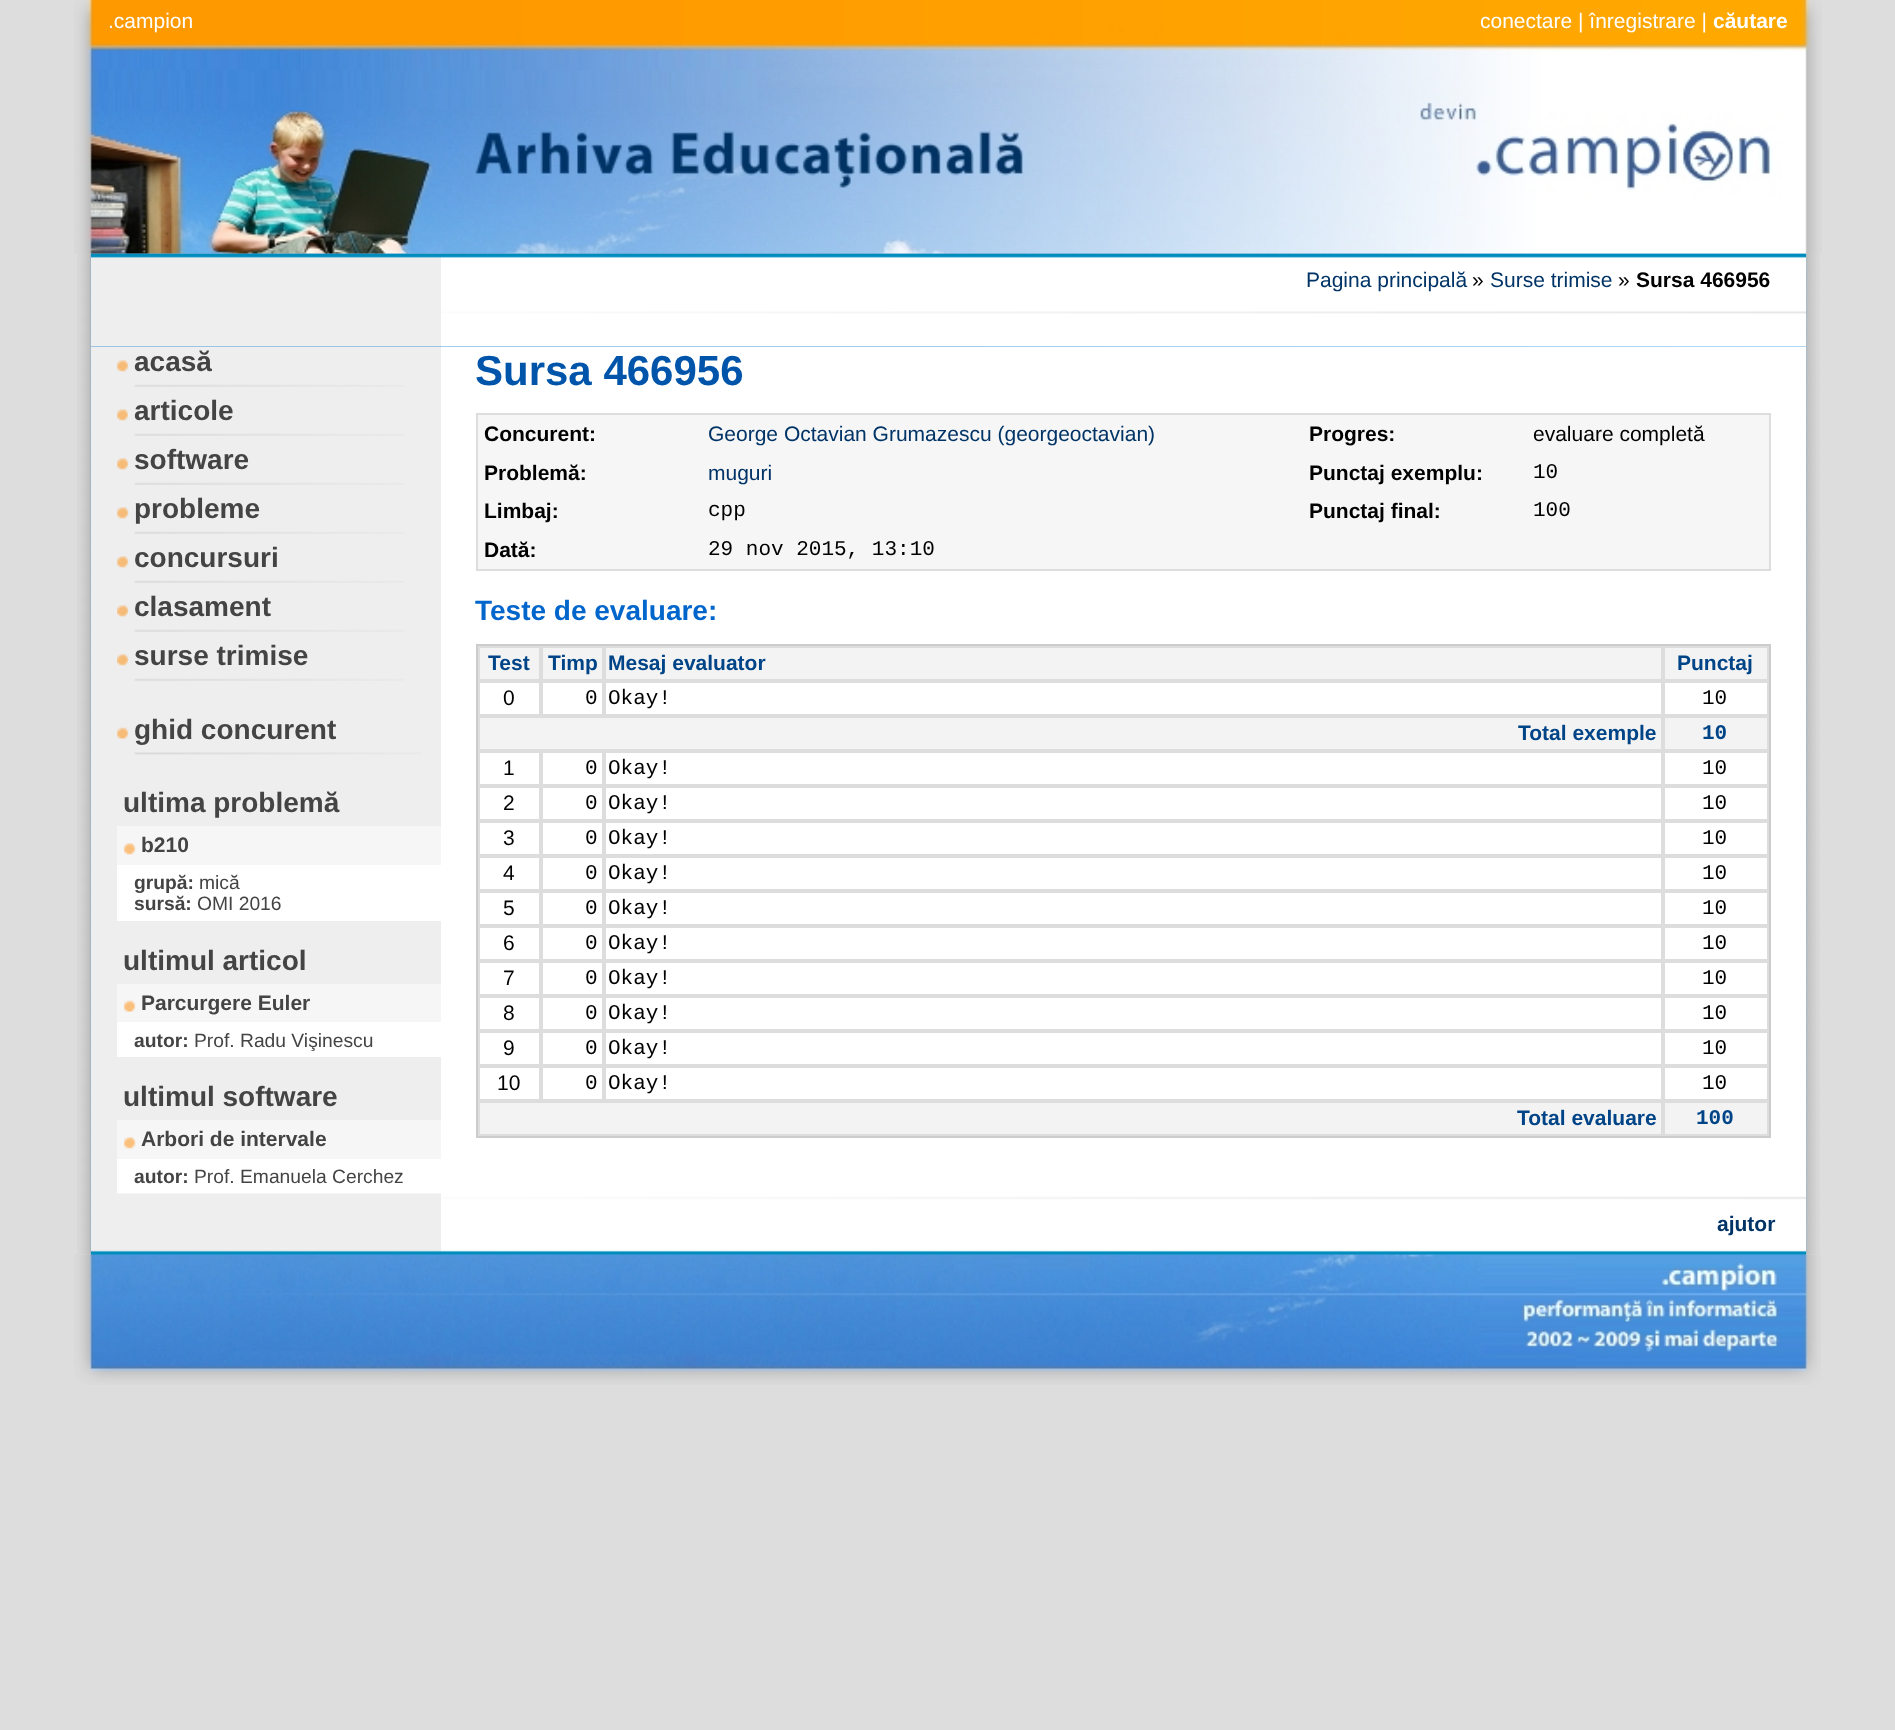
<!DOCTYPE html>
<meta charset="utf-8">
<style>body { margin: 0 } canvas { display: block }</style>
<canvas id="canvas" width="1895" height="1730"></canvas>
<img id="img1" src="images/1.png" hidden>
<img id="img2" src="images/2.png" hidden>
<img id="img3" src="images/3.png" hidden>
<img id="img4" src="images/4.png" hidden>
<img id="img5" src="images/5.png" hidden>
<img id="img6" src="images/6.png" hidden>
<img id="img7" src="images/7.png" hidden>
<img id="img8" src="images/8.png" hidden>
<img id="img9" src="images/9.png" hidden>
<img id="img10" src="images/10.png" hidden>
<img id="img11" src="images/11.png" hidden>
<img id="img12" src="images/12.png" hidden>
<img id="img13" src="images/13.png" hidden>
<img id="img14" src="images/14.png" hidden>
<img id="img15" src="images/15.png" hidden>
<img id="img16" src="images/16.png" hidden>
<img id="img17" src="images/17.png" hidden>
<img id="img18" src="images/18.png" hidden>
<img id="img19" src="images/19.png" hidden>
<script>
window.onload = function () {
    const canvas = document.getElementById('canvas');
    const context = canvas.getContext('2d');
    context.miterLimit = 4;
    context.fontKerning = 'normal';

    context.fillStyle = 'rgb(221, 221, 221)';
    context.fillRect(0, 0, 1895, 1730);
    context.drawImage(document.getElementById('img1'), 74, 0, 1748, 254);
    context.drawImage(document.getElementById('img2'), 77, 253, 1743, 1002);
    context.drawImage(document.getElementById('img3'), 91, 253, 350, 94);
    context.drawImage(document.getElementById('img4'), 441, 253, 1365, 94);
    context.fillStyle = 'rgb(238, 238, 238)';
    context.fillRect(91, 347, 350, 847);
    context.drawImage(document.getElementById('img5'), 134, 384, 270, 3);
    context.drawImage(document.getElementById('img6'), 117, 360, 12, 12);
    context.drawImage(document.getElementById('img5'), 134, 433, 270, 3);
    context.drawImage(document.getElementById('img7'), 117, 409, 11, 12);
    context.drawImage(document.getElementById('img5'), 134, 482, 270, 3);
    context.drawImage(document.getElementById('img8'), 117, 458, 12, 12);
    context.drawImage(document.getElementById('img5'), 134, 531, 270, 3);
    context.drawImage(document.getElementById('img9'), 117, 507, 12, 12);
    context.drawImage(document.getElementById('img5'), 134, 580, 270, 3);
    context.drawImage(document.getElementById('img10'), 117, 556, 12, 12);
    context.drawImage(document.getElementById('img5'), 134, 629, 270, 3);
    context.drawImage(document.getElementById('img11'), 117, 605, 12, 12);
    context.drawImage(document.getElementById('img5'), 134, 678, 270, 3);
    context.drawImage(document.getElementById('img10'), 117, 654, 12, 12);
    context.drawImage(document.getElementById('img12'), 134, 752, 287, 3);
    context.drawImage(document.getElementById('img13'), 117, 727, 12, 12);
    context.fillStyle = 'rgb(246, 246, 246)';
    context.fillRect(117, 826, 324, 39);
    context.drawImage(document.getElementById('img14'), 124, 843, 12, 12);
    context.fillStyle = 'rgb(255, 255, 255)';
    context.fillRect(117, 865, 324, 56);
    context.fillStyle = 'rgb(246, 246, 246)';
    context.fillRect(117, 984, 324, 38);
    context.drawImage(document.getElementById('img15'), 124, 1000, 12, 12);
    context.fillStyle = 'rgb(255, 255, 255)';
    context.fillRect(117, 1022, 324, 35);
    context.fillStyle = 'rgb(246, 246, 246)';
    context.fillRect(117, 1120, 324, 39);
    context.drawImage(document.getElementById('img16'), 124, 1137, 12, 12);
    context.fillStyle = 'rgb(255, 255, 255)';
    context.fillRect(117, 1159, 324, 35);
    context.fillRect(441, 347, 1365, 847);
    context.fillStyle = 'rgb(246, 246, 246)';
    context.beginPath();
    context.rect(477, 414, 1293, 156);
    context.fill();
    context.strokeStyle = 'rgb(221, 221, 221)';
    context.lineWidth = 2;
    context.stroke();
    context.strokeStyle = 'rgb(204, 204, 204)';
    context.strokeRect(477, 645, 1293, 492);
    context.fillStyle = 'rgb(243, 243, 243)';
    context.beginPath();
    context.rect(479, 647, 61, 33);
    context.fill();
    context.strokeStyle = 'rgb(221, 221, 221)';
    context.stroke();
    context.beginPath();
    context.rect(542, 647, 61, 33);
    context.fill();
    context.stroke();
    context.beginPath();
    context.rect(605, 647, 1057, 33);
    context.fill();
    context.stroke();
    context.beginPath();
    context.rect(1664, 647, 104, 33);
    context.fill();
    context.stroke();
    context.strokeRect(479, 682, 61, 33);
    context.strokeRect(542, 682, 61, 33);
    context.strokeRect(605, 682, 1057, 33);
    context.strokeRect(1664, 682, 104, 33);
    context.beginPath();
    context.rect(479, 717, 1183, 33);
    context.fill();
    context.stroke();
    context.beginPath();
    context.rect(1664, 717, 104, 33);
    context.fill();
    context.stroke();
    context.strokeRect(479, 752, 61, 33);
    context.strokeRect(542, 752, 61, 33);
    context.strokeRect(605, 752, 1057, 33);
    context.strokeRect(1664, 752, 104, 33);
    context.strokeRect(479, 787, 61, 33);
    context.strokeRect(542, 787, 61, 33);
    context.strokeRect(605, 787, 1057, 33);
    context.strokeRect(1664, 787, 104, 33);
    context.strokeRect(479, 822, 61, 33);
    context.strokeRect(542, 822, 61, 33);
    context.strokeRect(605, 822, 1057, 33);
    context.strokeRect(1664, 822, 104, 33);
    context.strokeRect(479, 857, 61, 33);
    context.strokeRect(542, 857, 61, 33);
    context.strokeRect(605, 857, 1057, 33);
    context.strokeRect(1664, 857, 104, 33);
    context.strokeRect(479, 892, 61, 33);
    context.strokeRect(542, 892, 61, 33);
    context.strokeRect(605, 892, 1057, 33);
    context.strokeRect(1664, 892, 104, 33);
    context.strokeRect(479, 927, 61, 33);
    context.strokeRect(542, 927, 61, 33);
    context.strokeRect(605, 927, 1057, 33);
    context.strokeRect(1664, 927, 104, 33);
    context.strokeRect(479, 962, 61, 33);
    context.strokeRect(542, 962, 61, 33);
    context.strokeRect(605, 962, 1057, 33);
    context.strokeRect(1664, 962, 104, 33);
    context.strokeRect(479, 997, 61, 33);
    context.strokeRect(542, 997, 61, 33);
    context.strokeRect(605, 997, 1057, 33);
    context.strokeRect(1664, 997, 104, 33);
    context.strokeRect(479, 1032, 61, 33);
    context.strokeRect(542, 1032, 61, 33);
    context.strokeRect(605, 1032, 1057, 33);
    context.strokeRect(1664, 1032, 104, 33);
    context.strokeRect(479, 1067, 61, 33);
    context.strokeRect(542, 1067, 61, 33);
    context.strokeRect(605, 1067, 1057, 33);
    context.strokeRect(1664, 1067, 104, 33);
    context.beginPath();
    context.rect(479, 1102, 1183, 33);
    context.fill();
    context.stroke();
    context.beginPath();
    context.rect(1664, 1102, 104, 33);
    context.fill();
    context.stroke();
    context.drawImage(document.getElementById('img17'), 91, 1193, 350, 62);
    context.drawImage(document.getElementById('img18'), 441, 1194, 1365, 61);
    context.drawImage(document.getElementById('img19'), 74, 1254, 1747, 131);
    context.font = '21px Liberation Sans';
    context.fillStyle = 'rgb(255, 255, 255)';
    context.fillText('.campion', 108, 28);
    context.fillText('conectare | înregistrare |', 1480, 28);
    context.font = 'bold 21px Liberation Sans';
    context.fillText('căutare', 1713, 28);
    context.font = '21px Liberation Sans';
    context.fillStyle = 'rgb(0, 51, 102)';
    context.fillText('Pagina principală', 1306, 287);
    context.fillStyle = 'rgb(0, 0, 0)';
    context.fillText('»', 1472, 287);
    context.fillStyle = 'rgb(0, 51, 102)';
    context.fillText('Surse trimise', 1490, 287);
    context.fillStyle = 'rgb(0, 0, 0)';
    context.fillText('»', 1618, 287);
    context.font = 'bold 21px Liberation Sans';
    context.fillText('Sursa 466956', 1636, 287);
    context.font = 'bold 28px Liberation Sans';
    context.fillStyle = 'rgb(68, 68, 68)';
    context.fillText('acasă', 134, 371);
    context.fillText('articole', 134, 420);
    context.fillText('software', 134, 469);
    context.fillText('probleme', 134, 518);
    context.fillText('concursuri', 134, 567);
    context.fillText('clasament', 134, 616);
    context.fillText('surse trimise', 134, 665);
    context.fillText('ghid concurent', 134, 739);
    context.fillText('ultima problemă', 123, 812);
    context.font = 'bold 21px Liberation Sans';
    context.fillText('b210', 141, 852);
    context.font = 'bold 19.25px Liberation Sans';
    context.fillText('grupă:', 134, 889);
    context.font = '19.25px Liberation Sans';
    context.fillText('mică', 199, 889);
    context.font = 'bold 19.25px Liberation Sans';
    context.fillText('sursă:', 134, 910);
    context.font = '19.25px Liberation Sans';
    context.fillText('OMI 2016', 197, 910);
    context.font = 'bold 28px Liberation Sans';
    context.fillText('ultimul articol', 123, 970);
    context.font = 'bold 21px Liberation Sans';
    context.fillText('Parcurgere Euler', 141, 1010);
    context.font = 'bold 19.25px Liberation Sans';
    context.fillText('autor:', 134, 1047);
    context.font = '19.25px Liberation Sans';
    context.fillText('Prof. Radu Vişinescu', 194, 1047);
    context.font = 'bold 28px Liberation Sans';
    context.fillText('ultimul software', 123, 1106);
    context.font = 'bold 21px Liberation Sans';
    context.fillText('Arbori de intervale', 141, 1146);
    context.font = 'bold 19.25px Liberation Sans';
    context.fillText('autor:', 134, 1183);
    context.font = '19.25px Liberation Sans';
    context.fillText('Prof. Emanuela Cerchez', 194, 1183);
    context.font = 'bold 42px Liberation Sans';
    context.fillStyle = 'rgb(0, 85, 170)';
    context.fillText('Sursa 466956', 475, 385);
    context.font = 'bold 21px Liberation Sans';
    context.fillStyle = 'rgb(0, 0, 0)';
    context.fillText('Concurent:', 484, 441);
    context.font = '21px Liberation Sans';
    context.fillStyle = 'rgb(0, 51, 102)';
    context.fillText('George Octavian Grumazescu (georgeoctavian)', 708, 441);
    context.font = 'bold 21px Liberation Sans';
    context.fillStyle = 'rgb(0, 0, 0)';
    context.fillText('Progres:', 1309, 441);
    context.font = '21px Liberation Sans';
    context.fillText('evaluare completă', 1533, 441);
    context.font = 'bold 21px Liberation Sans';
    context.fillText('Problemă:', 484, 480);
    context.font = '21px Liberation Sans';
    context.fillStyle = 'rgb(0, 51, 102)';
    context.fillText('muguri', 708, 480);
    context.font = 'bold 21px Liberation Sans';
    context.fillStyle = 'rgb(0, 0, 0)';
    context.fillText('Punctaj exemplu:', 1309, 480);
    context.font = '21px Liberation Mono';
    context.fillText('10', 1533, 478);
    context.font = 'bold 21px Liberation Sans';
    context.fillText('Limbaj:', 484, 518);
    context.font = '21px Liberation Mono';
    context.fillText('cpp', 708, 516);
    context.font = 'bold 21px Liberation Sans';
    context.fillText('Punctaj final:', 1309, 518);
    context.font = '21px Liberation Mono';
    context.fillText('100', 1533, 516);
    context.font = 'bold 21px Liberation Sans';
    context.fillText('Dată:', 484, 557);
    context.font = '21px Liberation Mono';
    context.fillText('29 nov 2015, 13:10', 708, 555);
    context.font = 'bold 28px Liberation Sans';
    context.fillStyle = 'rgb(0, 102, 204)';
    context.fillText('Teste de evaluare:', 475, 620);
    context.font = 'bold 21px Liberation Sans';
    context.fillStyle = 'rgb(0, 68, 136)';
    context.fillText('Test', 488, 670);
    context.fillText('Timp', 548, 670);
    context.fillText('Mesaj evaluator', 608, 670);
    context.fillText('Punctaj', 1677, 670);
    context.font = '21px Liberation Sans';
    context.fillStyle = 'rgb(0, 0, 0)';
    context.fillText('0', 503, 705);
    context.font = '21px Liberation Mono';
    context.fillText('0', 585, 704);
    context.fillText('Okay!', 608, 704);
    context.fillText('10', 1702, 704);
    context.font = 'bold 21px Liberation Sans';
    context.fillStyle = 'rgb(0, 68, 136)';
    context.fillText('Total exemple', 1518, 740);
    context.font = 'bold 21px Liberation Mono';
    context.fillText('10', 1702, 739);
    context.font = '21px Liberation Sans';
    context.fillStyle = 'rgb(0, 0, 0)';
    context.fillText('1', 503, 775);
    context.font = '21px Liberation Mono';
    context.fillText('0', 585, 774);
    context.fillText('Okay!', 608, 774);
    context.fillText('10', 1702, 774);
    context.font = '21px Liberation Sans';
    context.fillText('2', 503, 810);
    context.font = '21px Liberation Mono';
    context.fillText('0', 585, 809);
    context.fillText('Okay!', 608, 809);
    context.fillText('10', 1702, 809);
    context.font = '21px Liberation Sans';
    context.fillText('3', 503, 845);
    context.font = '21px Liberation Mono';
    context.fillText('0', 585, 844);
    context.fillText('Okay!', 608, 844);
    context.fillText('10', 1702, 844);
    context.font = '21px Liberation Sans';
    context.fillText('4', 503, 880);
    context.font = '21px Liberation Mono';
    context.fillText('0', 585, 879);
    context.fillText('Okay!', 608, 879);
    context.fillText('10', 1702, 879);
    context.font = '21px Liberation Sans';
    context.fillText('5', 503, 915);
    context.font = '21px Liberation Mono';
    context.fillText('0', 585, 914);
    context.fillText('Okay!', 608, 914);
    context.fillText('10', 1702, 914);
    context.font = '21px Liberation Sans';
    context.fillText('6', 503, 950);
    context.font = '21px Liberation Mono';
    context.fillText('0', 585, 949);
    context.fillText('Okay!', 608, 949);
    context.fillText('10', 1702, 949);
    context.font = '21px Liberation Sans';
    context.fillText('7', 503, 985);
    context.font = '21px Liberation Mono';
    context.fillText('0', 585, 984);
    context.fillText('Okay!', 608, 984);
    context.fillText('10', 1702, 984);
    context.font = '21px Liberation Sans';
    context.fillText('8', 503, 1020);
    context.font = '21px Liberation Mono';
    context.fillText('0', 585, 1019);
    context.fillText('Okay!', 608, 1019);
    context.fillText('10', 1702, 1019);
    context.font = '21px Liberation Sans';
    context.fillText('9', 503, 1055);
    context.font = '21px Liberation Mono';
    context.fillText('0', 585, 1054);
    context.fillText('Okay!', 608, 1054);
    context.fillText('10', 1702, 1054);
    context.font = '21px Liberation Sans';
    context.fillText('10', 497, 1090);
    context.font = '21px Liberation Mono';
    context.fillText('0', 585, 1089);
    context.fillText('Okay!', 608, 1089);
    context.fillText('10', 1702, 1089);
    context.font = 'bold 21px Liberation Sans';
    context.fillStyle = 'rgb(0, 68, 136)';
    context.fillText('Total evaluare', 1517, 1125);
    context.font = 'bold 21px Liberation Mono';
    context.fillText('100', 1696, 1124);
    context.font = 'bold 21px Liberation Sans';
    context.fillStyle = 'rgb(0, 51, 102)';
    context.fillText('ajutor', 1717, 1231);
};
</script>
